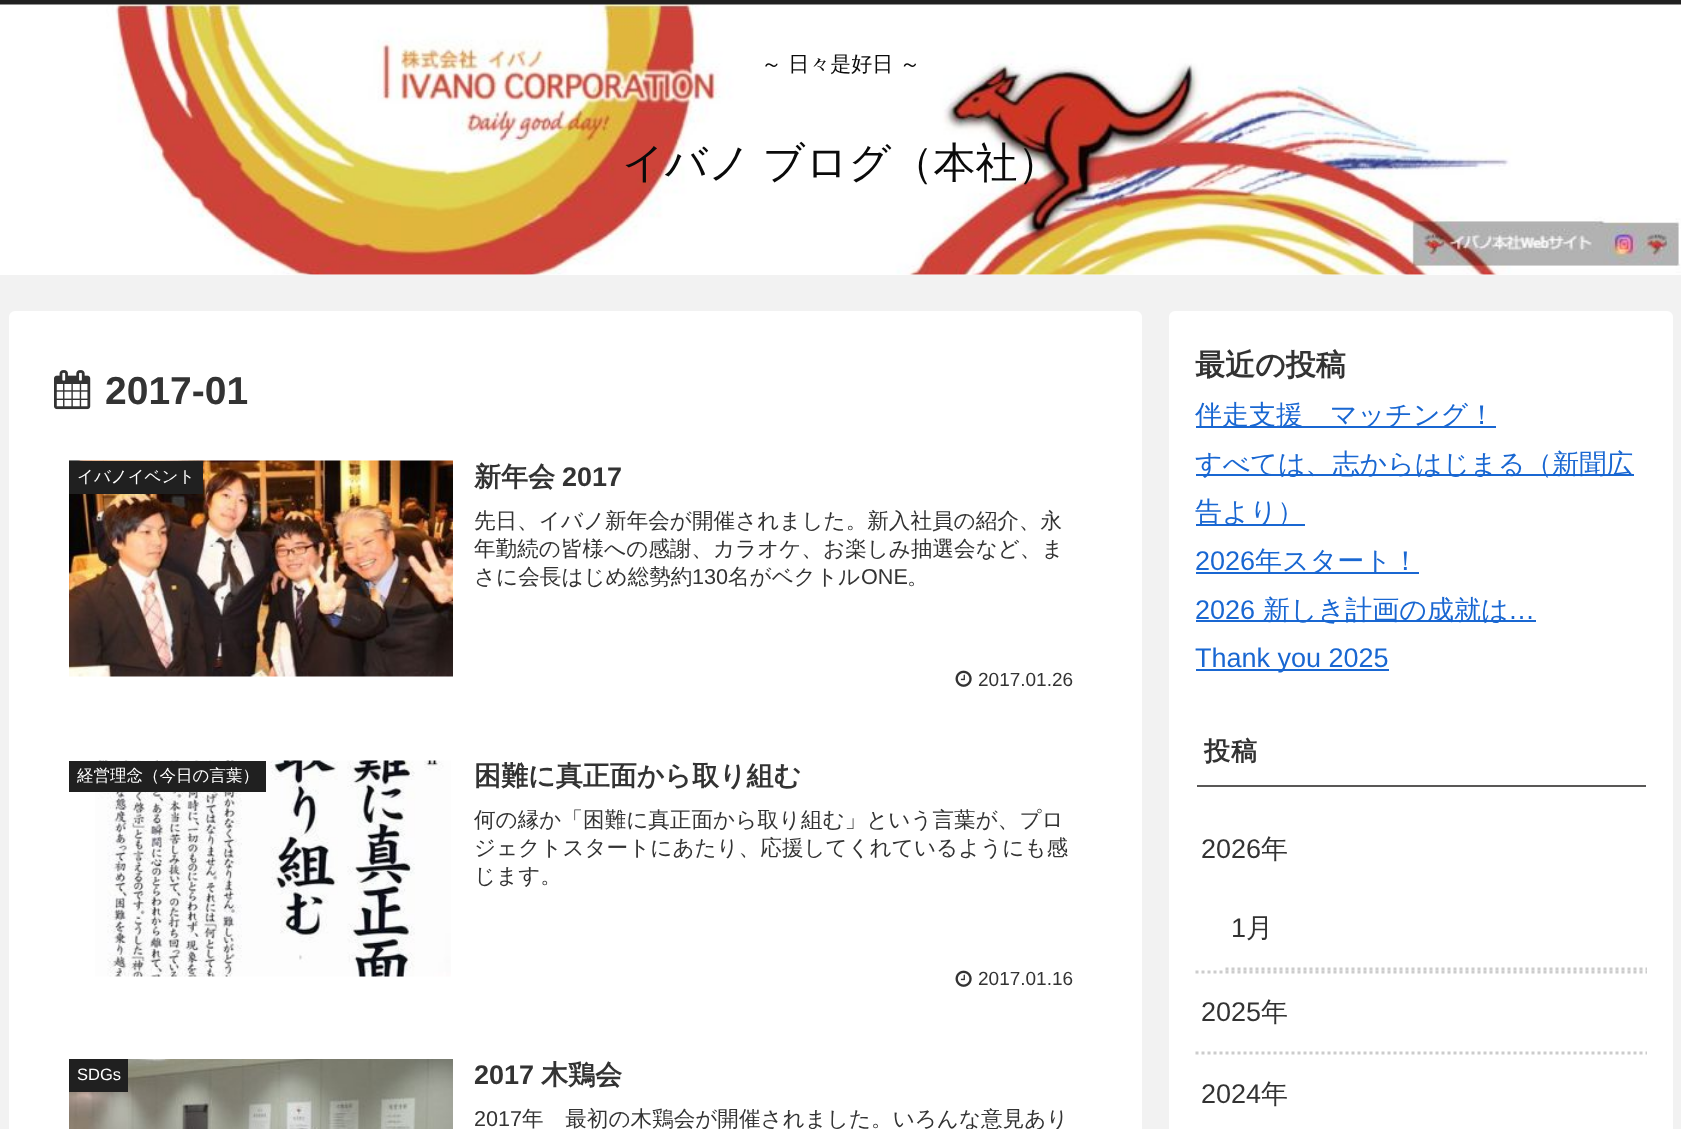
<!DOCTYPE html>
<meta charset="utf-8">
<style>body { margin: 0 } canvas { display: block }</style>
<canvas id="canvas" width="1681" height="1129"></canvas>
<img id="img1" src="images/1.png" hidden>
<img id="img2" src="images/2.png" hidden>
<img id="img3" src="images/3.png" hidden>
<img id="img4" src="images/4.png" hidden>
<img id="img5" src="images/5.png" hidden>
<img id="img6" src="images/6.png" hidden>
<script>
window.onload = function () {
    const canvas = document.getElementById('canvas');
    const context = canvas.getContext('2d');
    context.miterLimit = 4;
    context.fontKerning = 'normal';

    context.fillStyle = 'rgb(242, 242, 242)';
    context.fillRect(0, 0, 1681, 1129);
    context.fillStyle = 'rgb(255, 255, 255)';
    context.fillRect(0, 274, 1681, 1);
    context.fillStyle = 'rgb(32, 32, 32)';
    context.fillRect(0, 0, 1681, 5);
    context.drawImage(document.getElementById('img1'), 0, 4, 1681, 271);
    context.fillStyle = 'rgb(255, 255, 255)';
    context.beginPath();
    context.roundRect(9, 311, 1133, 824, 6);
    context.fill();
    context.drawImage(document.getElementById('img2'), 54, 370, 37, 40);
    context.drawImage(document.getElementById('img3'), 69, 460, 384, 217);
    context.fillStyle = 'rgb(32, 32, 32)';
    context.fillRect(69, 461, 134, 33);
    context.drawImage(document.getElementById('img4'), 955, 670, 17, 17);
    context.drawImage(document.getElementById('img5'), 95, 760, 356, 217);
    context.fillRect(69, 761, 197, 31);
    context.drawImage(document.getElementById('img4'), 955, 970, 17, 17);
    context.drawImage(document.getElementById('img6'), 69, 1059, 384, 70);
    context.fillRect(69, 1059, 59, 33);
    context.fillStyle = 'rgb(255, 255, 255)';
    context.beginPath();
    context.roundRect(1169, 311, 504, 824, 6);
    context.fill();
    context.fillStyle = 'rgb(25, 103, 210)';
    context.fillRect(1196, 426, 300, 2);
    context.fillRect(1196, 474, 438, 2);
    context.fillRect(1196, 524, 109, 2);
    context.fillRect(1196, 572, 223, 2);
    context.fillRect(1196, 620, 340, 2);
    context.fillRect(1196, 669, 193, 2);
    context.fillStyle = 'rgb(89, 88, 87)';
    context.fillRect(1197, 785, 449, 2);
    context.beginPath();
    context.moveTo(1195.5, 972);
    context.lineTo(1647, 972);
    context.strokeStyle = 'rgb(204, 204, 204)';
    context.lineWidth = 3;
    context.setLineDash([3, 3]);
    context.stroke();
    context.beginPath();
    context.moveTo(1225.5, 969);
    context.lineTo(1647, 969);
    context.stroke();
    context.beginPath();
    context.moveTo(1195.5, 1053);
    context.lineTo(1647, 1053);
    context.stroke();
    context.font = '500 21px WenQuanYi Zen Hei';
    context.fillStyle = 'rgb(10, 10, 10)';
    context.fillText('～ 日々是好日 ～', 761, 71);
    context.wordSpacing = '-1px';
    context.font = '500 42px WenQuanYi Zen Hei';
    context.fillText('イバノ ブログ（本社）', 622, 177);
    context.wordSpacing = '0px';
    context.font = 'bold 39px Liberation Sans';
    context.fillStyle = 'rgb(51, 51, 51)';
    context.fillText('2017-01', 105, 404);
    context.font = '500 16.5px WenQuanYi Zen Hei';
    context.fillStyle = 'rgb(255, 255, 255)';
    context.fillText('イバノイベント', 77, 482);
    context.font = 'bold 27px WenQuanYi Zen Hei';
    context.fillStyle = 'rgb(51, 51, 51)';
    context.fillText('新年会', 474, 486);
    context.font = 'bold 27px Liberation Sans';
    context.fillText('2017', 562, 486);
    context.font = '500 21.6px WenQuanYi Zen Hei';
    context.fillText('先日、イバノ新年会が開催されました。新入社員の紹介、永', 474, 528);
    context.fillText('年勤続の皆様への感謝、カラオケ、お楽しみ抽選会など、ま', 474, 556);
    context.fillText('さに会長はじめ総勢約', 474, 584);
    context.font = '21.6px Liberation Sans';
    context.fillText('130', 692, 584);
    context.font = '500 21.6px WenQuanYi Zen Hei';
    context.fillText('名がベクトル', 728, 584);
    context.font = '21.6px Liberation Sans';
    context.fillText('ONE', 861, 584);
    context.font = '500 21.6px WenQuanYi Zen Hei';
    context.fillText('。', 907, 584);
    context.font = '19px Liberation Sans';
    context.fillText('2017.01.26', 978, 686);
    context.font = '500 16.5px WenQuanYi Zen Hei';
    context.fillStyle = 'rgb(255, 255, 255)';
    context.fillText('経営理念（今日の言葉）', 77, 781);
    context.font = 'bold 27px WenQuanYi Zen Hei';
    context.fillStyle = 'rgb(51, 51, 51)';
    context.fillText('困難に真正面から取り組む', 474, 785);
    context.font = '500 21.6px WenQuanYi Zen Hei';
    context.fillText('何の縁か「困難に真正面から取り組む」という言葉が、プロ', 474, 827);
    context.fillText('ジェクトスタートにあたり、応援してくれているようにも感', 474, 855);
    context.fillText('じます。', 474, 883);
    context.font = '19px Liberation Sans';
    context.fillText('2017.01.16', 978, 985);
    context.font = '16.5px Liberation Sans';
    context.fillStyle = 'rgb(255, 255, 255)';
    context.fillText('SDGs', 77, 1080);
    context.font = 'bold 27px Liberation Sans';
    context.fillStyle = 'rgb(51, 51, 51)';
    context.fillText('2017', 474, 1084);
    context.font = 'bold 27px WenQuanYi Zen Hei';
    context.fillText('木鶏会', 541, 1084);
    context.font = '21.6px Liberation Sans';
    context.fillText('2017', 474, 1126);
    context.font = '500 21.6px WenQuanYi Zen Hei';
    context.fillText('年　最初の木鶏会が開催されました。いろんな意見あり', 522, 1126);
    context.font = 'bold 30px WenQuanYi Zen Hei';
    context.fillText('最近の投稿', 1195, 375);
    context.font = '500 27px WenQuanYi Zen Hei';
    context.fillStyle = 'rgb(25, 103, 210)';
    context.fillText('伴走支援　マッチング！', 1195, 424);
    context.fillText('すべては、志からはじまる（新聞広', 1195, 473);
    context.fillText('告より）', 1195, 521);
    context.font = '27px Liberation Sans';
    context.fillText('2026', 1195, 570);
    context.font = '500 27px WenQuanYi Zen Hei';
    context.fillText('年スタート！', 1255, 570);
    context.font = '27px Liberation Sans';
    context.fillText('2026', 1195, 619);
    context.font = '500 27px WenQuanYi Zen Hei';
    context.fillText('新しき計画の成就は', 1263, 619);
    context.font = '27px Liberation Sans';
    context.fillText('…', 1508, 619);
    context.fillText('Thank you 2025', 1195, 667);
    context.letterSpacing = '1px';
    context.font = 'bold 26px WenQuanYi Zen Hei';
    context.fillStyle = 'rgb(51, 51, 51)';
    context.fillText('投稿', 1204, 760);
    context.letterSpacing = '0px';
    context.font = '27px Liberation Sans';
    context.fillText('2026', 1201, 858);
    context.font = '500 27px WenQuanYi Zen Hei';
    context.fillText('年', 1261, 858);
    context.font = '27px Liberation Sans';
    context.fillText('1', 1231, 937);
    context.font = '500 27px WenQuanYi Zen Hei';
    context.fillText('月', 1246, 937);
    context.font = '27px Liberation Sans';
    context.fillText('2025', 1201, 1021);
    context.font = '500 27px WenQuanYi Zen Hei';
    context.fillText('年', 1261, 1021);
    context.font = '27px Liberation Sans';
    context.fillText('2024', 1201, 1103);
    context.font = '500 27px WenQuanYi Zen Hei';
    context.fillText('年', 1261, 1103);
};
</script>
